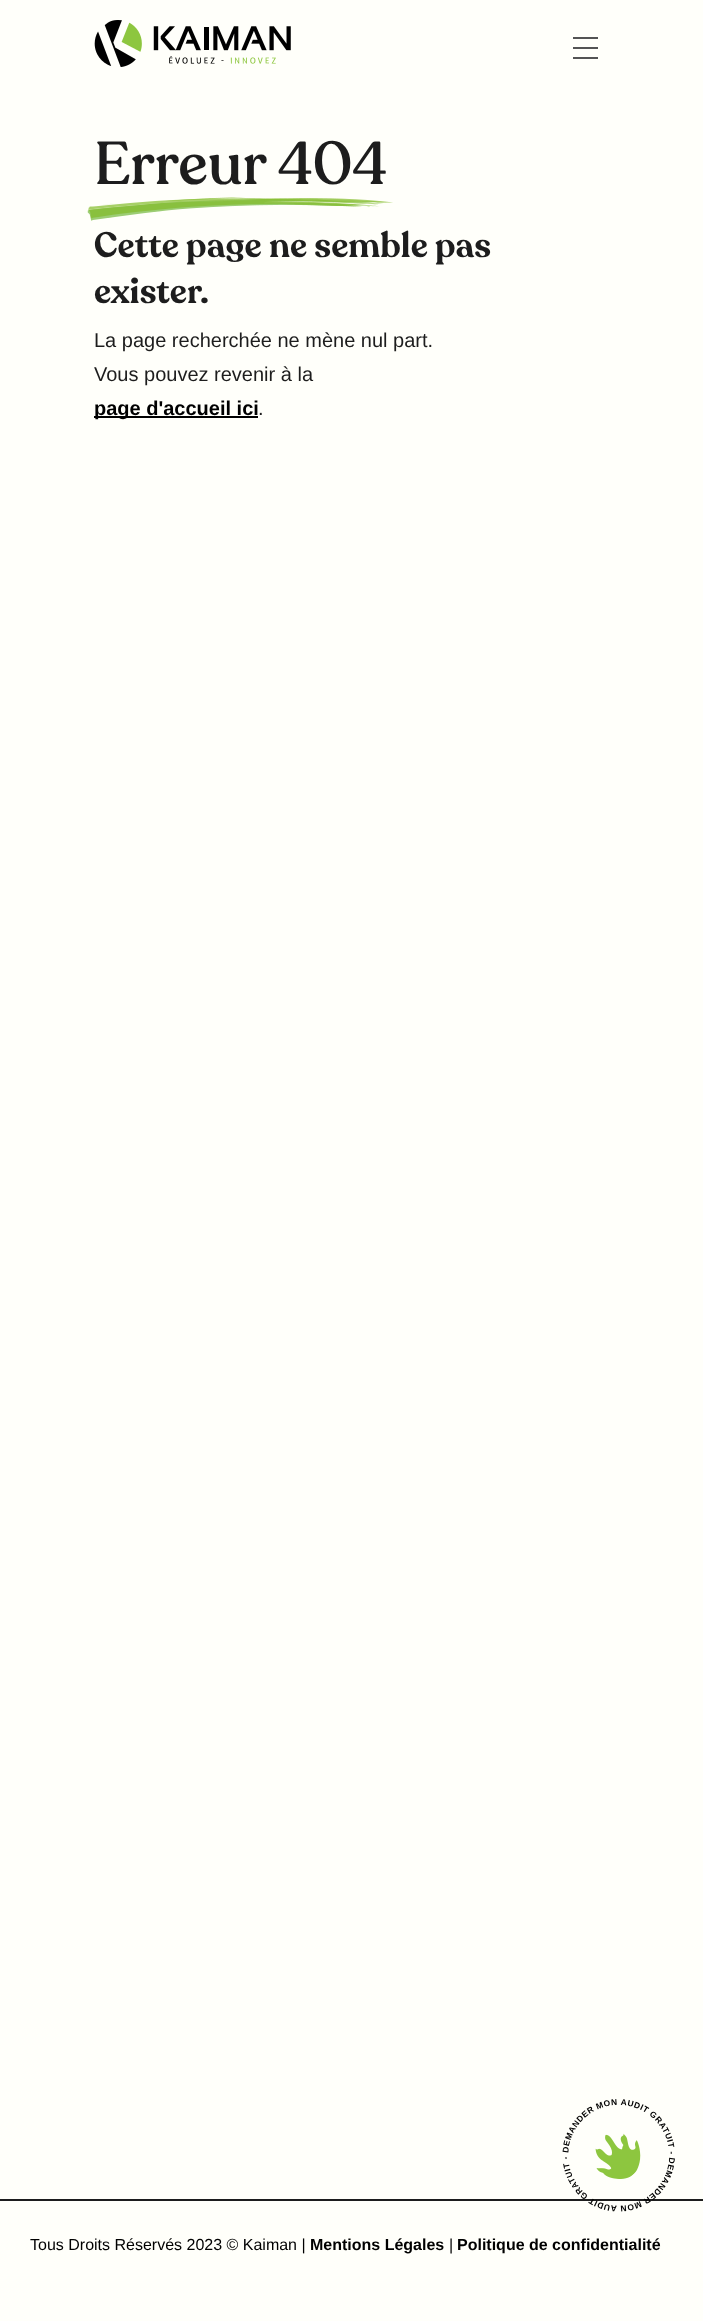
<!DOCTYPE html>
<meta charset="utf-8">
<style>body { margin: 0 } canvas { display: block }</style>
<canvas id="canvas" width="703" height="2321"></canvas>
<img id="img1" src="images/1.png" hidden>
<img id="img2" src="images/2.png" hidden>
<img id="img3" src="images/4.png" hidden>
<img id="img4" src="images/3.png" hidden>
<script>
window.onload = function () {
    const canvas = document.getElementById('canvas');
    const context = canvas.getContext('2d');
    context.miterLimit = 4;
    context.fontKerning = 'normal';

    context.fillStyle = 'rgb(255, 255, 250)';
    context.fillRect(0, 0, 703, 2321);
    context.drawImage(document.getElementById('img1'), 94, 20, 197, 47);
    context.fillStyle = 'rgb(84, 84, 84)';
    context.fillRect(573, 47, 25, 2);
    context.fillRect(573, 37, 25, 2);
    context.fillRect(573, 57, 25, 2);
    context.fillStyle = 'rgb(29, 29, 29)';
    context.fillRect(0, 2199, 703, 2);
    context.drawImage(document.getElementById('img2'), 87, 197, 306, 24);
    context.fillStyle = 'rgb(0, 0, 0)';
    context.fillRect(94, 416, 164, 2);
    context.drawImage(document.getElementById('img3'), 595, 2133, 46, 46);
    context.drawImage(document.getElementById('img4'), 562, 2099, 113, 113);
    context.font = '500 60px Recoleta';
    context.fillStyle = 'rgb(29, 29, 29)';
    context.fillText('Erreur 404', 94, 184);
    context.font = '600 35px Recoleta';
    context.fillText('Cette page ne semble pas', 94, 257);
    context.fillText('exister.', 94, 303);
    context.font = '20px Liberation Sans';
    context.fillText('La page recherchée ne mène nul part.', 94, 347);
    context.fillText('Vous pouvez revenir à la', 94, 381);
    context.font = 'bold 20px Liberation Sans';
    context.fillStyle = 'rgb(0, 0, 0)';
    context.fillText('page d\'accueil ici', 94, 415);
    context.font = '20px Liberation Sans';
    context.fillStyle = 'rgb(29, 29, 29)';
    context.fillText('.', 258, 415);
    context.font = '16px Liberation Sans';
    context.fillStyle = 'rgb(0, 0, 0)';
    context.fillText('Tous Droits Réservés 2023 © Kaiman |', 30, 2250);
    context.font = 'bold 16px Liberation Sans';
    context.fillText('Mentions Légales', 310, 2250);
    context.font = '16px Liberation Sans';
    context.fillText('|', 449, 2250);
    context.font = 'bold 16px Liberation Sans';
    context.fillText('Politique de confidentialité', 457, 2250);
};
</script>
